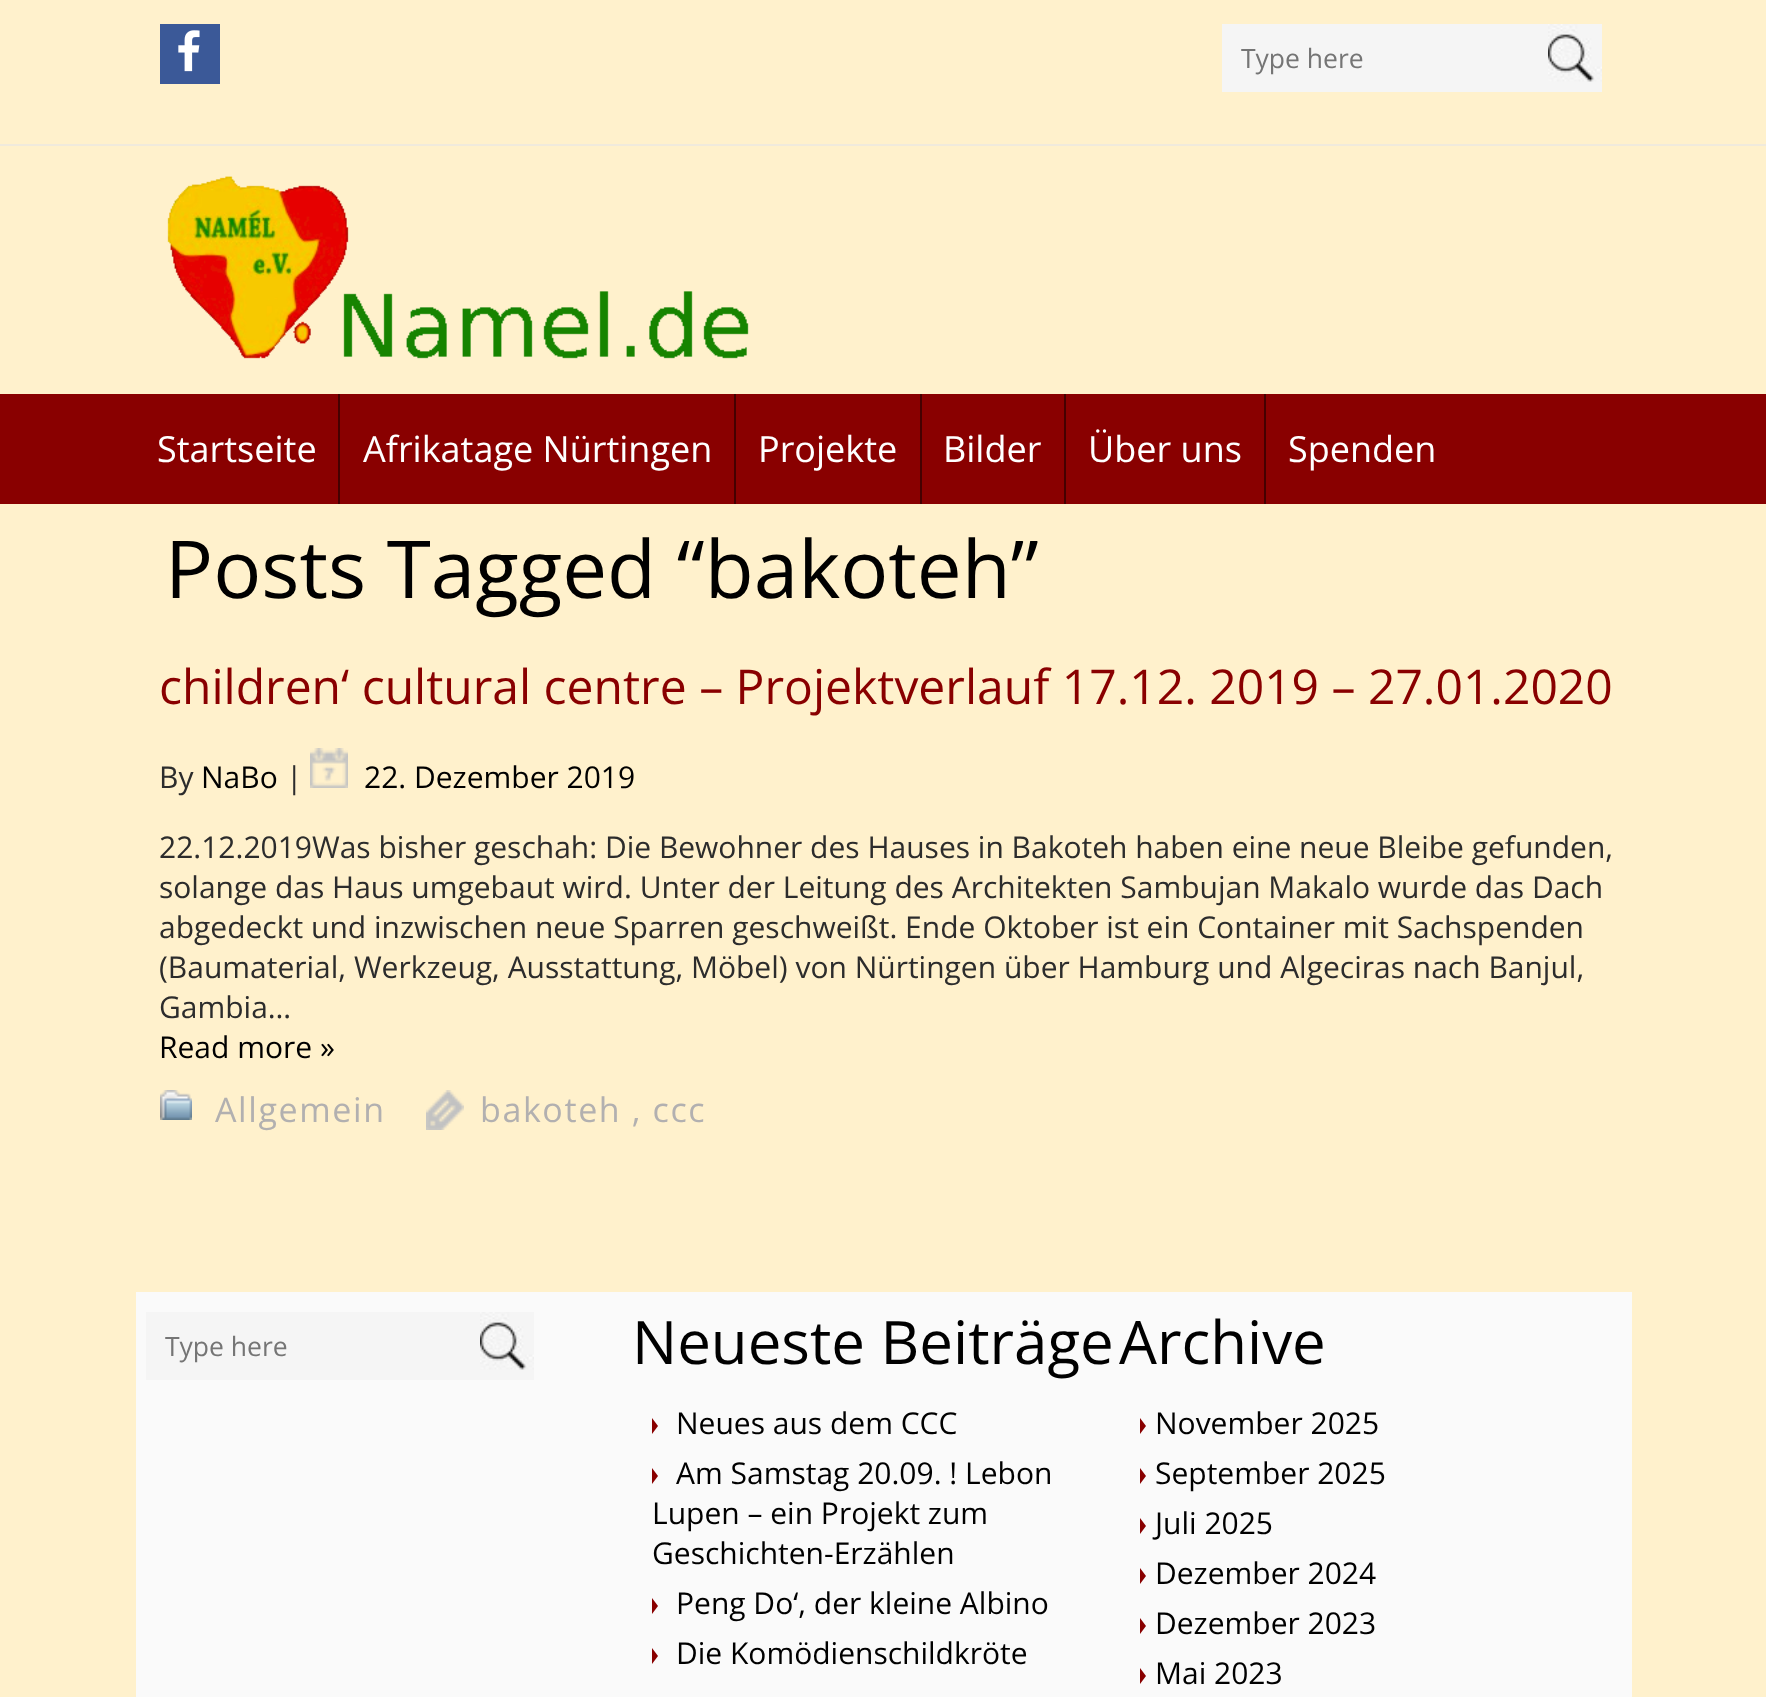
<!DOCTYPE html>
<meta charset="utf-8">
<style>body { margin: 0 } canvas { display: block }</style>
<canvas id="canvas" width="1766" height="1697"></canvas>
<img id="img1" src="images/1.png" hidden>
<img id="img2" src="images/2.png" hidden>
<img id="img3" src="images/3.png" hidden>
<img id="img4" src="images/4.png" hidden>
<img id="img5" src="images/5.png" hidden>
<img id="img6" src="images/6.png" hidden>
<img id="img7" src="images/7.png" hidden>
<script>
window.onload = function () {
    const canvas = document.getElementById('canvas');
    const context = canvas.getContext('2d');
    context.miterLimit = 4;
    context.fontKerning = 'normal';

    context.fillStyle = 'rgb(255, 241, 204)';
    context.fillRect(0, 0, 1766, 1697);
    context.fillStyle = 'rgb(240, 234, 220)';
    context.fillRect(0, 144, 1766, 2);
    context.fillStyle = 'rgb(59, 89, 152)';
    context.fillRect(160, 24, 60, 60);
    context.drawImage(document.getElementById('img1'), 178, 30, 22, 42);
    context.fillStyle = 'rgb(245, 245, 245)';
    context.fillRect(1222, 24, 380, 68);
    context.drawImage(document.getElementById('img2'), 1548, 24, 54, 58);
    context.drawImage(document.getElementById('img3'), 167, 176, 582, 183);
    context.fillStyle = 'rgb(137, 0, 0)';
    context.fillRect(0, 394, 1766, 110);
    context.fillStyle = 'rgb(69, 0, 0)';
    context.fillRect(338, 394, 2, 110);
    context.fillRect(734, 394, 2, 110);
    context.fillRect(920, 394, 2, 110);
    context.fillRect(1064, 394, 2, 110);
    context.fillRect(1264, 394, 2, 110);
    context.drawImage(document.getElementById('img4'), 310, 748, 38, 40);
    context.drawImage(document.getElementById('img5'), 160, 1090, 32, 30);
    context.drawImage(document.getElementById('img6'), 426, 1090, 38, 40);
    context.fillStyle = 'rgb(250, 250, 250)';
    context.fillRect(136, 1292, 1496, 405);
    context.fillStyle = 'rgb(245, 245, 245)';
    context.fillRect(146, 1312, 388, 68);
    context.drawImage(document.getElementById('img7'), 480, 1312, 54, 58);
    context.fillStyle = 'rgb(137, 0, 0)';
    context.beginPath();
    context.moveTo(652, 1434);
    context.lineTo(652, 1418);
    context.lineTo(658, 1426);
    context.closePath();
    context.fill();
    context.beginPath();
    context.moveTo(652, 1484);
    context.lineTo(652, 1468);
    context.lineTo(658, 1476);
    context.closePath();
    context.fill();
    context.beginPath();
    context.moveTo(652, 1614);
    context.lineTo(652, 1598);
    context.lineTo(658, 1606);
    context.closePath();
    context.fill();
    context.beginPath();
    context.moveTo(652, 1664);
    context.lineTo(652, 1648);
    context.lineTo(658, 1656);
    context.closePath();
    context.fill();
    context.beginPath();
    context.moveTo(1140, 1434);
    context.lineTo(1140, 1418);
    context.lineTo(1146, 1426);
    context.closePath();
    context.fill();
    context.beginPath();
    context.moveTo(1140, 1484);
    context.lineTo(1140, 1468);
    context.lineTo(1146, 1476);
    context.closePath();
    context.fill();
    context.beginPath();
    context.moveTo(1140, 1534);
    context.lineTo(1140, 1518);
    context.lineTo(1146, 1526);
    context.closePath();
    context.fill();
    context.beginPath();
    context.moveTo(1140, 1584);
    context.lineTo(1140, 1568);
    context.lineTo(1146, 1576);
    context.closePath();
    context.fill();
    context.beginPath();
    context.moveTo(1140, 1634);
    context.lineTo(1140, 1618);
    context.lineTo(1146, 1626);
    context.closePath();
    context.fill();
    context.beginPath();
    context.moveTo(1140, 1684);
    context.lineTo(1140, 1668);
    context.lineTo(1146, 1676);
    context.closePath();
    context.fill();
    context.font = '26.5px Open Sans';
    context.fillStyle = 'rgb(117, 117, 117)';
    context.fillText('Type here', 1241, 68);
    context.font = '36px Open Sans';
    context.fillStyle = 'rgb(255, 255, 255)';
    context.fillText('Startseite', 157, 462);
    context.fillText('Afrikatage Nürtingen', 363, 462);
    context.fillText('Projekte', 758, 462);
    context.fillText('Bilder', 943, 462);
    context.fillText('Über uns', 1088, 462);
    context.fillText('Spenden', 1288, 462);
    context.font = '80px Open Sans';
    context.fillStyle = 'rgb(0, 0, 0)';
    context.fillText('Posts Tagged “bakoteh”', 165, 598);
    context.font = '48px Open Sans';
    context.fillStyle = 'rgb(137, 0, 0)';
    context.fillText('children‘ cultural centre – Projektverlauf 17.12. 2019 – 27.01.2020', 159, 704);
    context.font = '30px Open Sans';
    context.fillStyle = 'rgb(44, 44, 44)';
    context.fillText('By', 159, 788);
    context.fillStyle = 'rgb(0, 0, 0)';
    context.fillText('NaBo', 201, 788);
    context.fillStyle = 'rgb(44, 44, 44)';
    context.fillText('|', 286, 788);
    context.fillStyle = 'rgb(0, 0, 0)';
    context.fillText('22. Dezember 2019', 364, 788);
    context.fillStyle = 'rgb(44, 44, 44)';
    context.fillText('22.12.2019Was bisher geschah: Die Bewohner des Hauses in Bakoteh haben eine neue Bleibe gefunden,', 159, 858);
    context.fillText('solange das Haus umgebaut wird. Unter der Leitung des Architekten Sambujan Makalo wurde das Dach', 159, 898);
    context.fillText('abgedeckt und inzwischen neue Sparren geschweißt. Ende Oktober ist ein Container mit Sachspenden', 159, 938);
    context.fillText('(Baumaterial, Werkzeug, Ausstattung, Möbel) von Nürtingen über Hamburg und Algeciras nach Banjul,', 159, 978);
    context.fillText('Gambia…', 159, 1018);
    context.fillStyle = 'rgb(0, 0, 0)';
    context.fillText('Read more »', 159, 1058);
    context.letterSpacing = '1.6px';
    context.font = '34px Open Sans';
    context.fillStyle = 'rgb(178, 176, 176)';
    context.fillText('Allgemein', 215, 1122);
    context.fillText('bakoteh , ccc', 480, 1122);
    context.letterSpacing = '0px';
    context.font = '26.5px Open Sans';
    context.fillStyle = 'rgb(117, 117, 117)';
    context.fillText('Type here', 165, 1356);
    context.font = '60px Open Sans';
    context.fillStyle = 'rgb(0, 0, 0)';
    context.fillText('Neueste Beiträge', 632, 1364);
    context.font = '30px Open Sans';
    context.fillText('Neues aus dem CCC', 676, 1434);
    context.fillText('Am Samstag 20.09. ! Lebon', 676, 1484);
    context.fillText('Lupen – ein Projekt zum', 652, 1524);
    context.fillText('Geschichten-Erzählen', 652, 1564);
    context.fillText('Peng Do‘, der kleine Albino', 676, 1614);
    context.fillText('Die Komödienschildkröte', 676, 1664);
    context.font = '60px Open Sans';
    context.fillText('Archive', 1119, 1364);
    context.font = '30px Open Sans';
    context.fillText('November 2025', 1155, 1434);
    context.fillText('September 2025', 1155, 1484);
    context.fillText('Juli 2025', 1155, 1534);
    context.fillText('Dezember 2024', 1155, 1584);
    context.fillText('Dezember 2023', 1155, 1634);
    context.fillText('Mai 2023', 1155, 1684);
};
</script>
